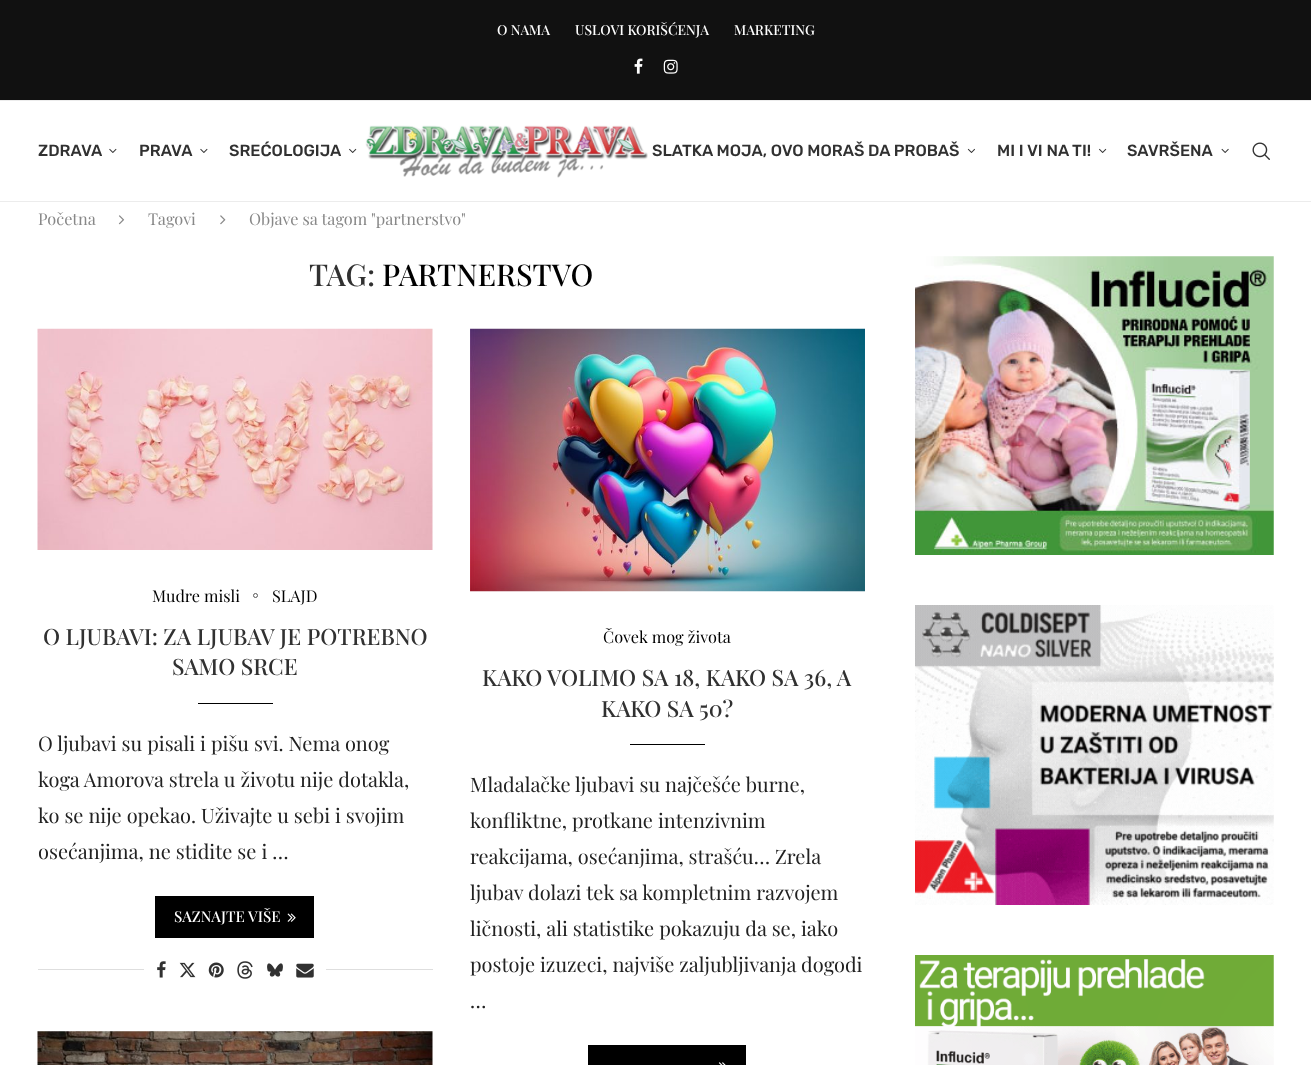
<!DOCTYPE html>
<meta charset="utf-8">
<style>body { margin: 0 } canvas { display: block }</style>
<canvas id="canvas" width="1311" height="1065"></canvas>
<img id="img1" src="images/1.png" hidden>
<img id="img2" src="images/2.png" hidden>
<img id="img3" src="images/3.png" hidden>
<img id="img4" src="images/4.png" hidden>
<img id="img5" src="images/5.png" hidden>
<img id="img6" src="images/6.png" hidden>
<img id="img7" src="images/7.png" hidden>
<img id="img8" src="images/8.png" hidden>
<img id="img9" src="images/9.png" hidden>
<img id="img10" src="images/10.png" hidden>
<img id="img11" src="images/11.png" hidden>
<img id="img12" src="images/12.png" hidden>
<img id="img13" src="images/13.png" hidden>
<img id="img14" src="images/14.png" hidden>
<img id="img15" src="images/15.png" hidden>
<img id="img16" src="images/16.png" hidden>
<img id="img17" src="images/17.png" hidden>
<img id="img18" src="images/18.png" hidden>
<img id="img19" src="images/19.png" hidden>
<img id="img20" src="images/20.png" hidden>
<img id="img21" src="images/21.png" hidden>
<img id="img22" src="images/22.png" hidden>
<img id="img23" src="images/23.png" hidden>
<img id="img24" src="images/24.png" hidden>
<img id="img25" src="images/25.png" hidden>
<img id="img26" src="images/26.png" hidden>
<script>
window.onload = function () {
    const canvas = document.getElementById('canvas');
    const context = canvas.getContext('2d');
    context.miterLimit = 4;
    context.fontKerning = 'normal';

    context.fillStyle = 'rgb(255, 255, 255)';
    context.fillRect(0, 0, 1311, 1065);
    context.fillStyle = 'rgb(17, 17, 17)';
    context.fillRect(0, 0, 1311, 100);
    context.drawImage(document.getElementById('img1'), 634, 58, 9, 16);
    context.drawImage(document.getElementById('img2'), 663, 59, 15, 15);
    context.fillStyle = 'rgb(236, 236, 236)';
    context.fillRect(0, 100, 1311, 1);
    context.fillRect(0, 201, 1311, 1);
    context.drawImage(document.getElementById('img3'), 109, 148, 8, 5);
    context.drawImage(document.getElementById('img4'), 200, 148, 8, 5);
    context.drawImage(document.getElementById('img5'), 349, 148, 8, 5);
    context.drawImage(document.getElementById('img6'), 365, 125, 283, 53);
    context.drawImage(document.getElementById('img7'), 967, 148, 8, 5);
    context.drawImage(document.getElementById('img8'), 1099, 148, 8, 5);
    context.drawImage(document.getElementById('img9'), 1221, 148, 8, 5);
    context.drawImage(document.getElementById('img10'), 1252, 142, 18, 18);
    context.drawImage(document.getElementById('img11'), 118, 215, 7, 10);
    context.drawImage(document.getElementById('img12'), 220, 215, 6, 10);
    context.drawImage(document.getElementById('img13'), 37, 328, 396, 222);
    context.beginPath();
    context.arc(255.5, 595.5, 2, 0, 2 * Math.PI);
    context.strokeStyle = 'rgb(89, 89, 89)';
    context.stroke();
    context.fillStyle = 'rgb(0, 0, 0)';
    context.fillRect(198, 703, 75, 1);
    context.fillRect(155, 896, 159, 42);
    context.drawImage(document.getElementById('img14'), 287, 913, 9, 9);
    context.fillStyle = 'rgb(222, 222, 222)';
    context.fillRect(38, 969, 395, 1);
    context.fillStyle = 'rgb(255, 255, 255)';
    context.fillRect(144, 969, 182, 1);
    context.drawImage(document.getElementById('img15'), 157, 961, 9, 17);
    context.drawImage(document.getElementById('img16'), 179, 962, 17, 16);
    context.drawImage(document.getElementById('img17'), 208, 962, 16, 16);
    context.drawImage(document.getElementById('img18'), 237, 961, 16, 18);
    context.drawImage(document.getElementById('img19'), 267, 963, 16, 14);
    context.drawImage(document.getElementById('img20'), 296, 963, 18, 15);
    context.drawImage(document.getElementById('img21'), 470, 328, 395, 264);
    context.fillStyle = 'rgb(0, 0, 0)';
    context.fillRect(630, 744, 75, 1);
    context.fillRect(588, 1045, 158, 20);
    context.drawImage(document.getElementById('img22'), 718, 1062, 8, 3);
    context.drawImage(document.getElementById('img23'), 37, 1031, 396, 34);
    context.drawImage(document.getElementById('img24'), 915, 256, 359, 299);
    context.drawImage(document.getElementById('img25'), 915, 605, 359, 300);
    context.drawImage(document.getElementById('img26'), 915, 955, 359, 110);
    context.font = '500 13.75px Playfair Display';
    context.fillStyle = 'rgb(255, 255, 255)';
    context.fillText('O NAMA', 497, 35);
    context.fillText('USLOVI KORIŠĆENJA', 575, 35);
    context.fillText('MARKETING', 734, 35);
    context.font = '500 16.25px Rubik';
    context.fillStyle = 'rgb(49, 49, 49)';
    context.fillText('ZDRAVA', 38, 156);
    context.fillText('PRAVA', 139, 156);
    context.fillText('SREĆOLOGIJA', 229, 156);
    context.fillText('SLATKA MOJA, OVO MORAŠ DA PROBAŠ', 652, 156);
    context.fillText('MI I VI NA TI!', 997, 156);
    context.fillText('SAVRŠENA', 1127, 156);
    context.font = '16.25px Playfair Display';
    context.fillStyle = 'rgb(136, 136, 136)';
    context.fillText('Početna', 38, 225);
    context.fillText('Tagovi', 148, 225);
    context.fillText('Objave sa tagom "partnerstvo"', 249, 225);
    context.font = '500 30px Playfair Display';
    context.fillStyle = 'rgb(49, 49, 49)';
    context.fillText('TAG:', 309, 286);
    context.fillStyle = 'rgb(0, 0, 0)';
    context.fillText('PARTNERSTVO', 382, 286);
    context.font = '16.25px Playfair Display';
    context.fillText('Mudre misli', 152, 602);
    context.fillText('SLAJD', 272, 602);
    context.font = '500 22.5px Playfair Display';
    context.fillStyle = 'rgb(49, 49, 49)';
    context.fillText('O LJUBAVI: ZA LJUBAV JE POTREBNO', 43, 645);
    context.fillText('SAMO SRCE', 172, 675);
    context.font = '20px Playfair Display';
    context.fillStyle = 'rgb(34, 34, 34)';
    context.fillText('O ljubavi su pisali i pišu svi. Nema onog', 38, 751);
    context.fillText('koga Amorova strela u životu nije dotakla,', 38, 787);
    context.fillText('ko se nije opekao. Uživajte u sebi i svojim', 38, 823);
    context.fillText('osećanjima, ne stidite se i …', 38, 859);
    context.font = '500 15px Playfair Display';
    context.fillStyle = 'rgb(255, 255, 255)';
    context.fillText('SAZNAJTE VIŠE', 174, 922);
    context.font = '16.25px Playfair Display';
    context.fillStyle = 'rgb(0, 0, 0)';
    context.fillText('Čovek mog života', 603, 643);
    context.font = '500 22.5px Playfair Display';
    context.fillStyle = 'rgb(49, 49, 49)';
    context.fillText('KAKO VOLIMO SA 18, KAKO SA 36, A', 482, 686);
    context.fillText('KAKO SA 50?', 601, 717);
    context.font = '20px Playfair Display';
    context.fillStyle = 'rgb(34, 34, 34)';
    context.fillText('Mladalačke ljubavi su najčešće burne,', 470, 792);
    context.fillText('konfliktne, protkane intenzivnim', 470, 828);
    context.fillText('reakcijama, osećanjima, strašću… Zrela', 470, 864);
    context.fillText('ljubav dolazi tek sa kompletnim razvojem', 470, 900);
    context.fillText('ličnosti, ali statistike pokazuju da se, iako', 470, 936);
    context.fillText('postoje izuzeci, najviše zaljubljivanja dogodi', 470, 972);
    context.fillText('…', 470, 1008);
};
</script>
